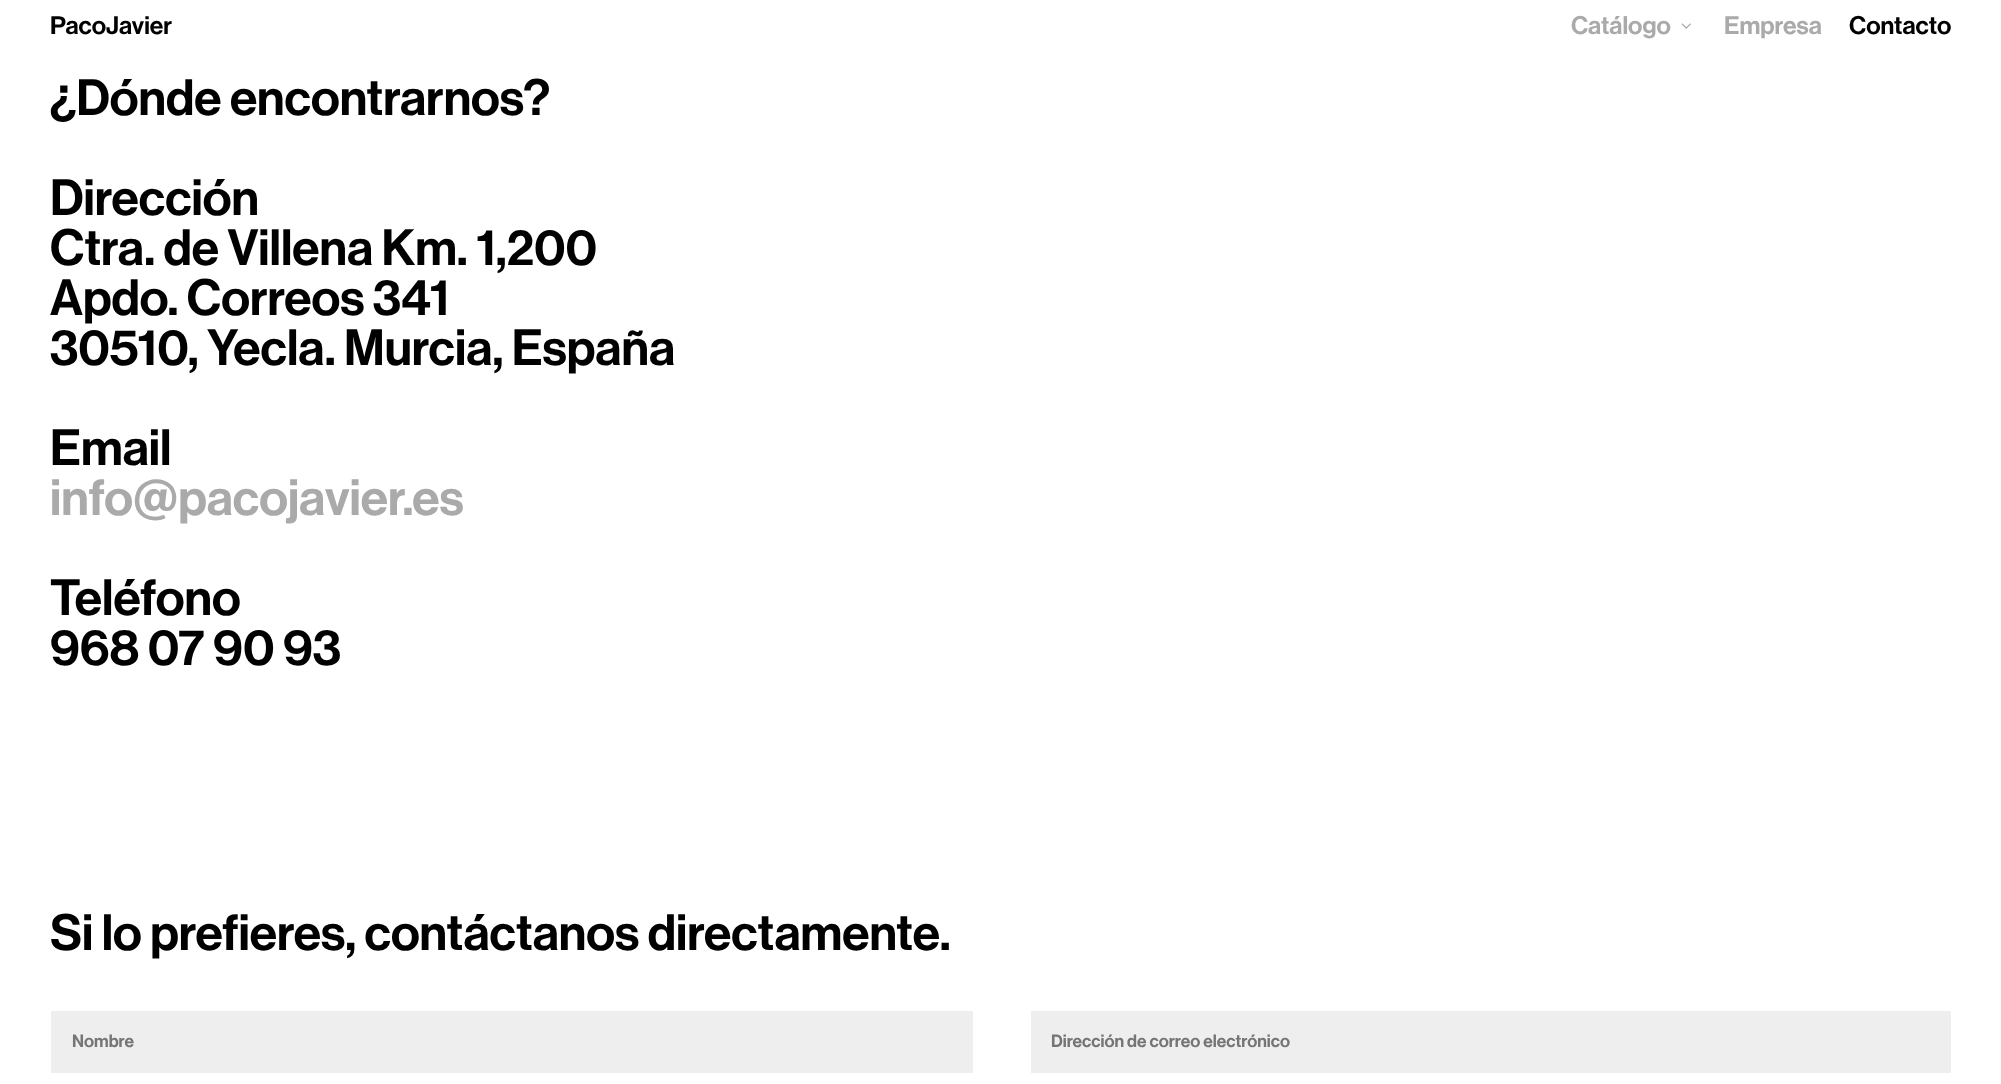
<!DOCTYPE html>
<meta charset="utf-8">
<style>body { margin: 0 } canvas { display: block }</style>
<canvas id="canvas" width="2001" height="1084"></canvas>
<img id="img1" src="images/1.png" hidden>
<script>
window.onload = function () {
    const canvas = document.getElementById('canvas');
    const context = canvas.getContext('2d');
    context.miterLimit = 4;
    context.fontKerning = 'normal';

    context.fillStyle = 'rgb(255, 255, 255)';
    context.fillRect(0, 0, 2001, 1084);
    context.drawImage(document.getElementById('img1'), 1681, 23, 10, 6);
    context.fillStyle = 'rgb(238, 238, 238)';
    context.fillRect(51, 1011, 922, 62);
    context.fillRect(1031, 1011, 920, 62);
    context.font = '500 25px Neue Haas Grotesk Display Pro';
    context.fillStyle = 'rgb(0, 0, 0)';
    context.fillText('PacoJavier', 50, 34);
    context.fillStyle = 'rgb(170, 170, 170)';
    context.fillText('Catálogo', 1571, 34);
    context.fillText('Empresa', 1724, 34);
    context.fillStyle = 'rgb(0, 0, 0)';
    context.fillText('Contacto', 1849, 34);
    context.font = '500 50px Neue Haas Grotesk Display Pro';
    context.fillText('¿Dónde encontrarnos?', 50, 115);
    context.fillText('Dirección', 50, 215);
    context.fillText('Ctra. de Villena Km. 1,200', 50, 265);
    context.fillText('Apdo. Correos 341', 50, 315);
    context.fillText('30510, Yecla. Murcia, España', 50, 365);
    context.fillText('Email', 50, 465);
    context.fillStyle = 'rgb(170, 170, 170)';
    context.fillText('info@pacojavier.es', 50, 515);
    context.fillStyle = 'rgb(0, 0, 0)';
    context.fillText('Teléfono', 50, 615);
    context.fillText('968 07 90 93', 50, 665);
    context.fillText('Si lo prefieres, contáctanos directamente.', 50, 950);
    context.font = '500 17.5px Neue Haas Grotesk Display Pro';
    context.fillStyle = 'rgb(117, 117, 117)';
    context.fillText('Nombre', 72, 1047);
    context.fillText('Dirección de correo electrónico', 1051, 1047);
};
</script>
